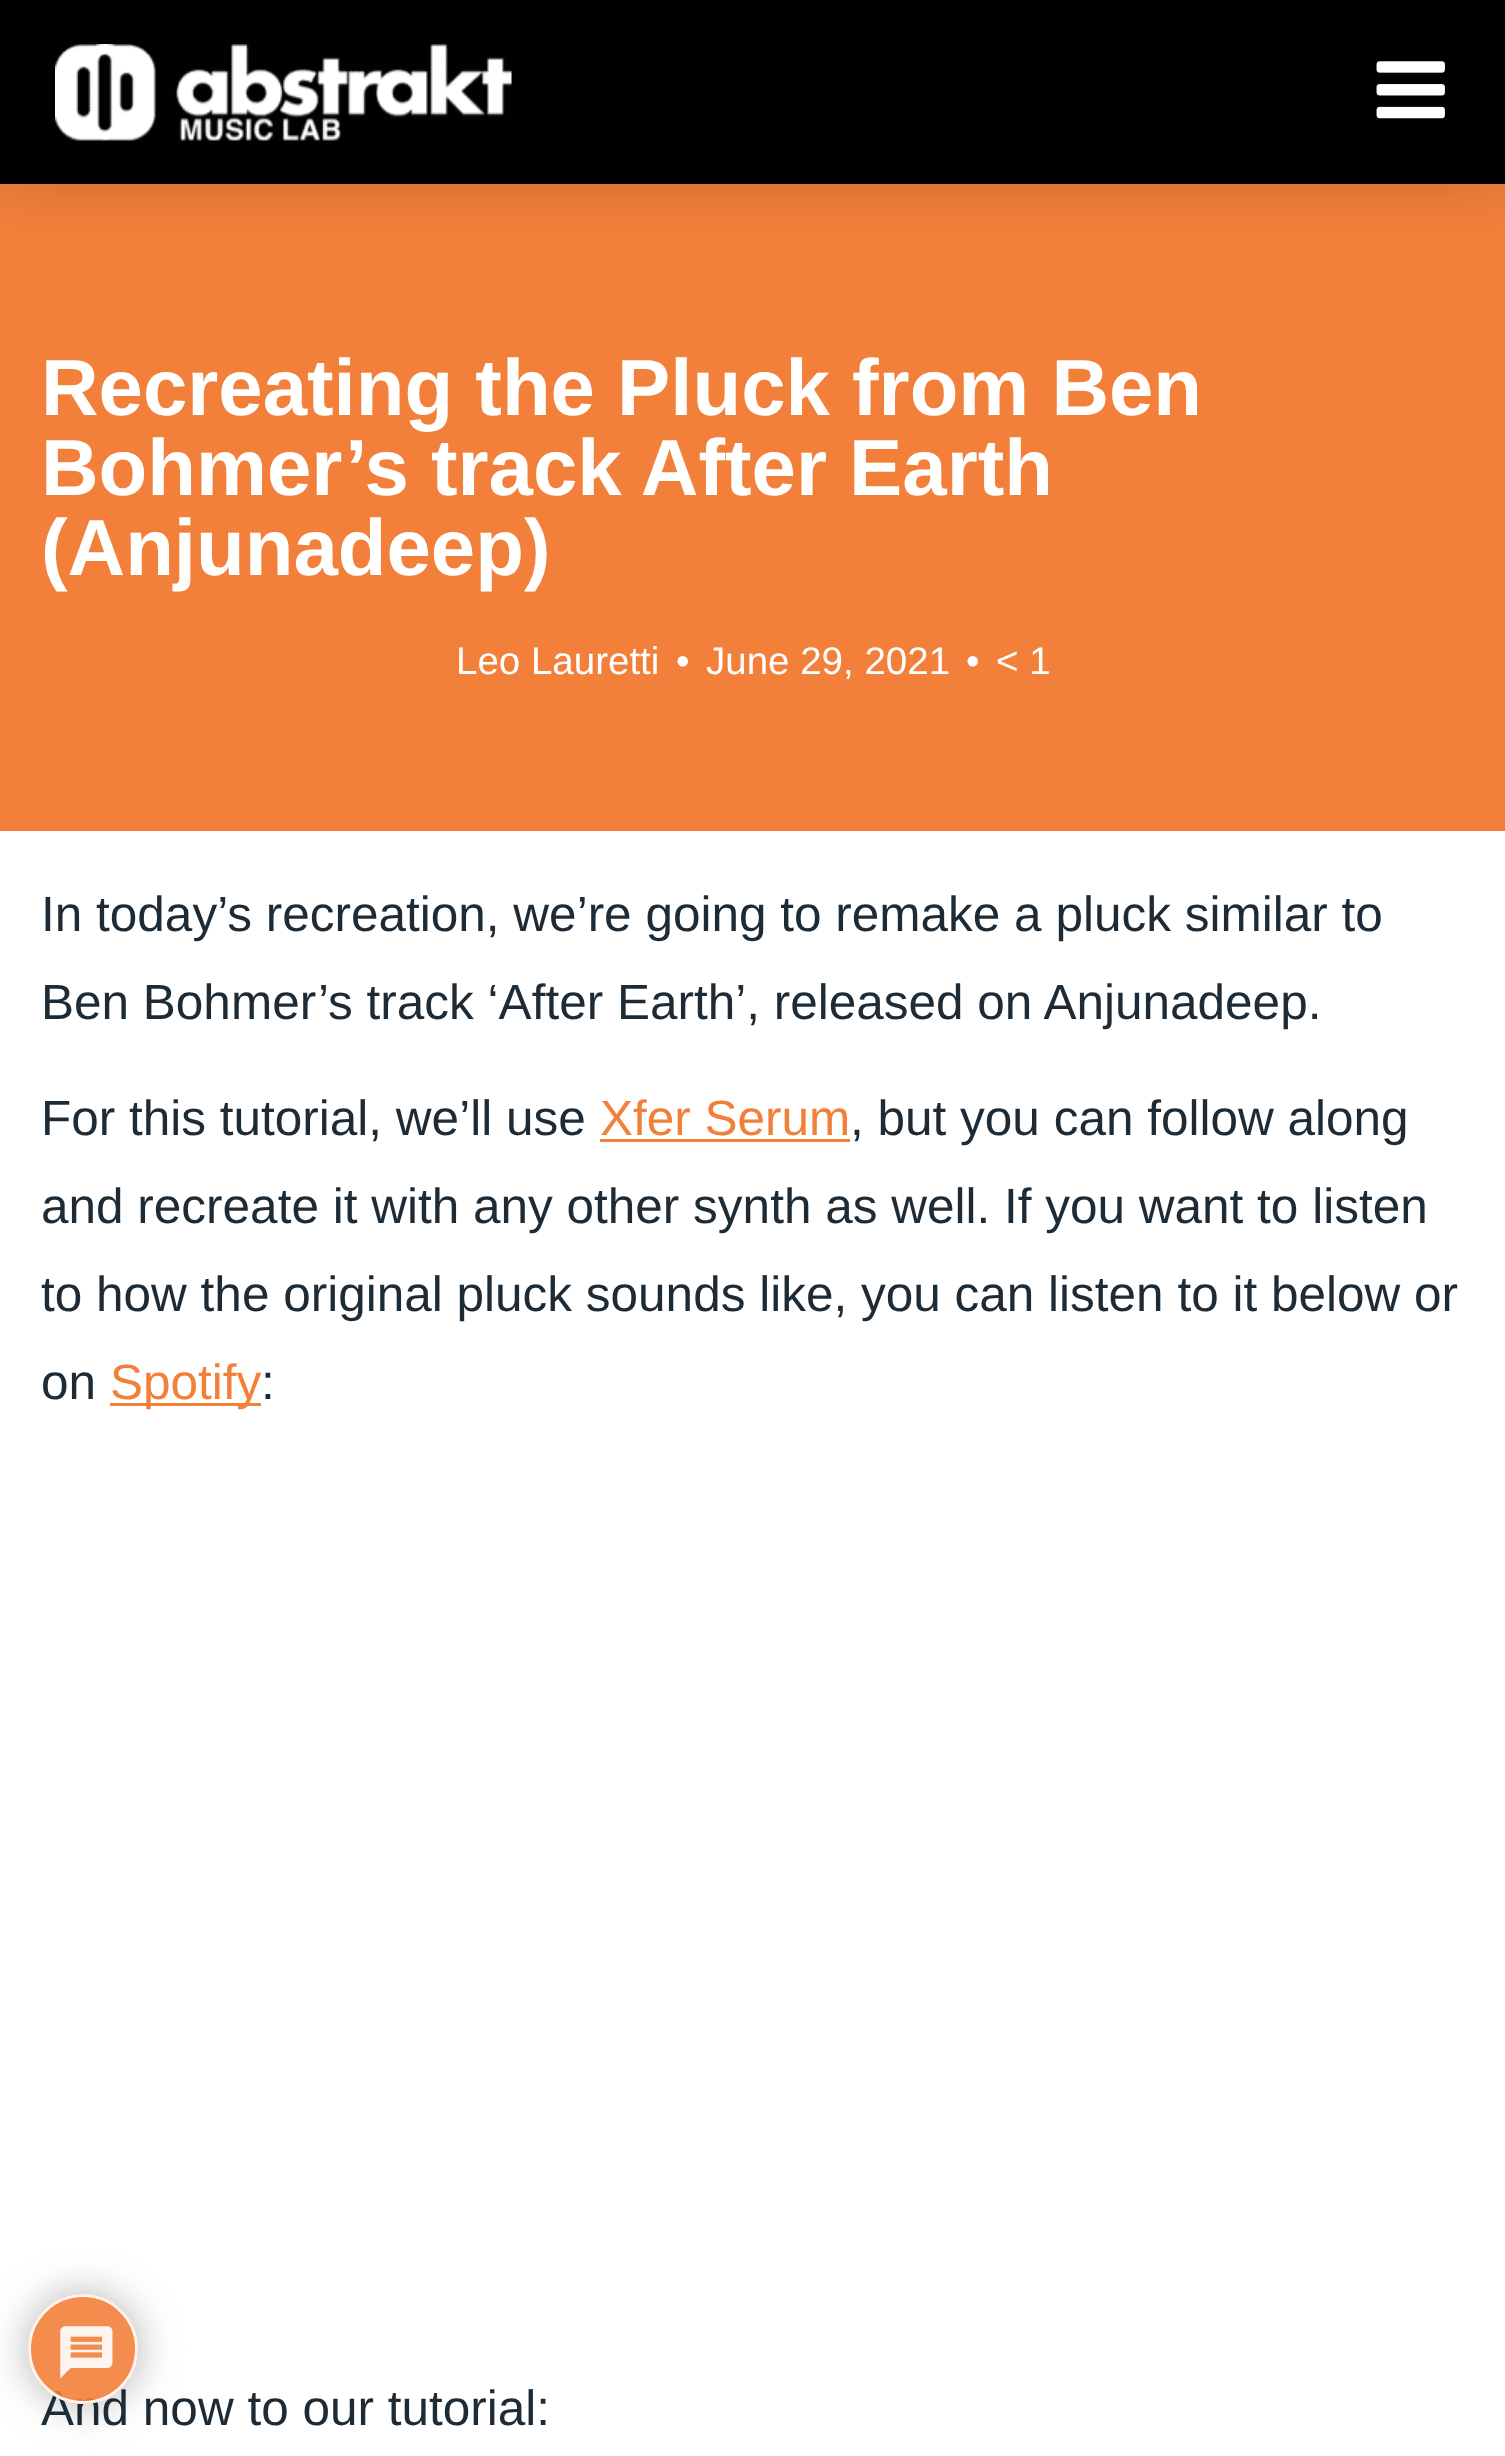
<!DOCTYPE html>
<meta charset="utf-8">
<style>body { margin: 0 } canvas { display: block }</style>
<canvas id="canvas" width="1505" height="2456"></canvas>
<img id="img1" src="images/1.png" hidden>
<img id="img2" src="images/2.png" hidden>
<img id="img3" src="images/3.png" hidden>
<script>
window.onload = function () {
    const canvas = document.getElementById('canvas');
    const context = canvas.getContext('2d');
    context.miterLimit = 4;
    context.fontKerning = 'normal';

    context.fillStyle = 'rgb(255, 255, 255)';
    context.fillRect(0, 0, 1505, 2456);
    context.fillStyle = 'rgb(242, 128, 58)';
    context.fillRect(0, 184, 1505, 647);
    context.fillStyle = 'rgba(0, 0, 0, 0.15)';
    context.filter = 'blur(33px)';
    context.beginPath();
    context.rect(0, 0, 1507, 184);
    context.fill();
    context.filter = 'none';
    context.fillStyle = 'rgb(1, 1, 1)';
    context.fillRect(0, 0, 1505, 184);
    context.drawImage(document.getElementById('img1'), 55, 44, 457, 97);
    context.drawImage(document.getElementById('img2'), 1376, 61, 69, 58);
    context.fillStyle = 'rgb(242, 128, 58)';
    context.fillRect(600, 1139, 250, 3);
    context.fillRect(110, 1403, 151, 3);
    context.save();
    context.beginPath();
    context.moveTo(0, 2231);
    context.lineTo(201, 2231);
    context.lineTo(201, 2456);
    context.lineTo(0, 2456);
    context.closePath();
    context.moveTo(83, 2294);
    context.bezierCurveTo(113.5, 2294, 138, 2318.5, 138, 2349);
    context.bezierCurveTo(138, 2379.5, 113.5, 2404, 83, 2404);
    context.bezierCurveTo(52.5, 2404, 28, 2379.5, 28, 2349);
    context.bezierCurveTo(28, 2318.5, 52.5, 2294, 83, 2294);
    context.closePath();
    context.clip('evenodd');
    context.fillStyle = 'rgba(170, 170, 170, 0.9)';
    context.filter = 'blur(20.5px)';
    context.beginPath();
    context.roundRect(28, 2294, 110, 110, 55);
    context.fill();
    context.filter = 'none';
    context.restore();
    context.font = 'bold 79.75px Liberation Sans';
    context.fillStyle = 'rgb(255, 255, 255)';
    context.fillText('Recreating the Pluck from Ben', 41, 415);
    context.fillText('Bohmer’s track After Earth', 41, 495);
    context.fillText('(Anjunadeep)', 41, 575);
    context.font = '38.5px Liberation Sans';
    context.fillText('Leo Lauretti', 456, 674);
    context.fillText('•', 676, 674);
    context.fillText('June 29, 2021', 706, 674);
    context.fillText('•', 966, 674);
    context.fillText('< 1', 996, 674);
    context.font = '49.5px Liberation Sans';
    context.fillStyle = 'rgb(29, 43, 54)';
    context.fillText('In today’s recreation, we’re going to remake a pluck similar to', 41, 931);
    context.fillText('Ben Bohmer’s track ‘After Earth’, released on Anjunadeep.', 41, 1019);
    context.fillText('For this tutorial, we’ll use', 41, 1135);
    context.fillStyle = 'rgb(242, 128, 58)';
    context.fillText('Xfer Serum', 600, 1135);
    context.fillStyle = 'rgb(29, 43, 54)';
    context.fillText(', but you can follow along', 850, 1135);
    context.fillText('and recreate it with any other synth as well. If you want to listen', 41, 1223);
    context.fillText('to how the original pluck sounds like, you can listen to it below or', 41, 1311);
    context.fillText('on', 41, 1399);
    context.fillStyle = 'rgb(242, 128, 58)';
    context.fillText('Spotify', 110, 1399);
    context.fillStyle = 'rgb(29, 43, 54)';
    context.fillText(':', 261, 1399);
    context.fillText('And now to our tutorial:', 41, 2425);
    context.fillStyle = 'rgba(242, 128, 58, 0.9)';
    context.beginPath();
    context.arc(83, 2349, 55, 0, 2 * Math.PI);
    context.fill();
    context.beginPath();
    context.arc(83, 2349, 53.5, 0, 2 * Math.PI);
    context.strokeStyle = 'rgba(255, 255, 255, 0.9)';
    context.lineWidth = 3;
    context.stroke();
    context.drawImage(document.getElementById('img3'), 60, 2326, 53, 53);
};
</script>
